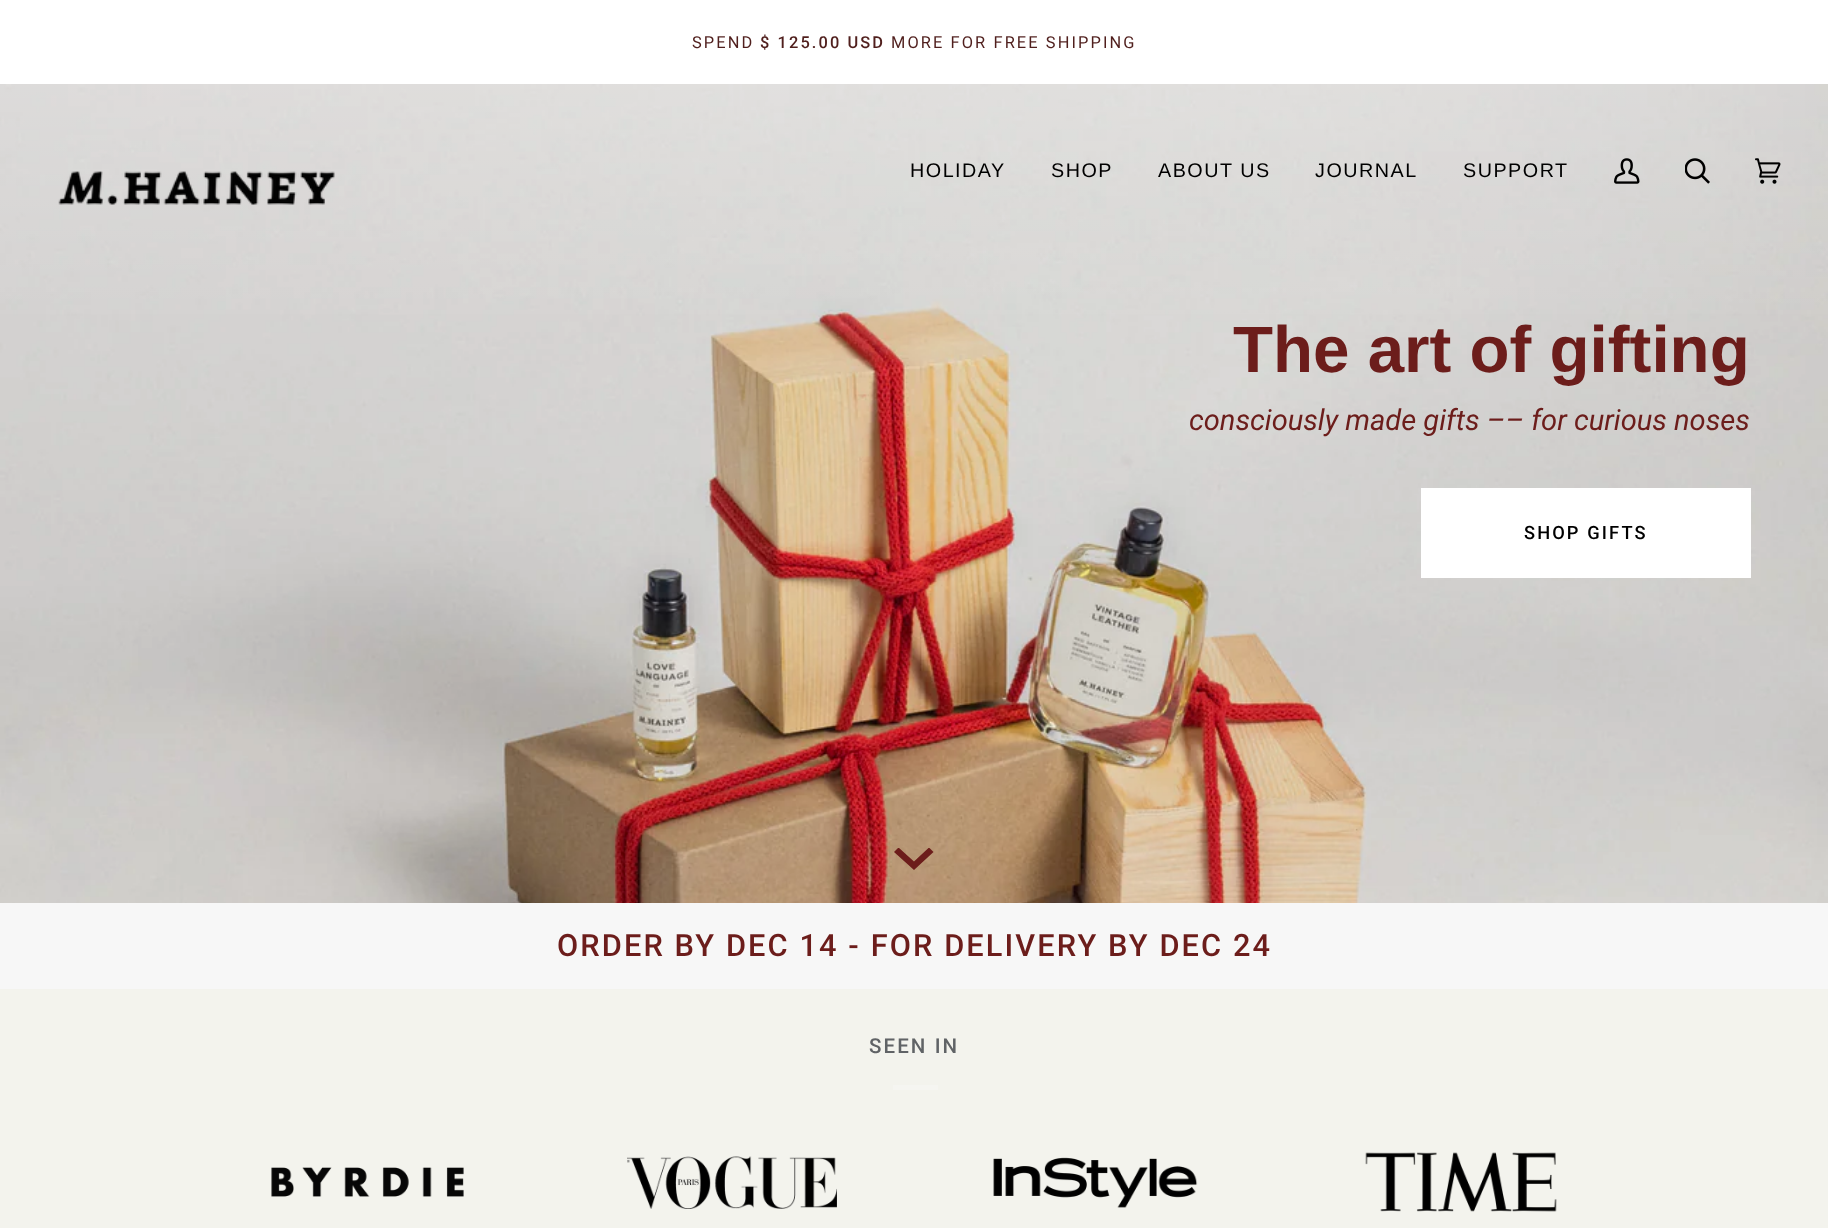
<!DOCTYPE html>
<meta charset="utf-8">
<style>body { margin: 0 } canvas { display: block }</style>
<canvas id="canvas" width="1828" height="1228"></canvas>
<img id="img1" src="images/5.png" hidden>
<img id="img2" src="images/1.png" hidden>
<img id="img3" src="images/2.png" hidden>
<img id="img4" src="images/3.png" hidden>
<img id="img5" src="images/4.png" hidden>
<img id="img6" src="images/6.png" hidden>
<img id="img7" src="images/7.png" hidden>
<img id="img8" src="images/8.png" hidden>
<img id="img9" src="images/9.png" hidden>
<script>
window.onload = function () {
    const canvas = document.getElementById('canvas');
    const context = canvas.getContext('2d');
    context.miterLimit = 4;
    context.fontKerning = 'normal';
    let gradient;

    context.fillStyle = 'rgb(255, 255, 255)';
    context.fillRect(0, 0, 1828, 1228);
    context.drawImage(document.getElementById('img1'), 0, 84, 1828, 819);
    gradient = context.createLinearGradient(914, 84, 914, 342);
    gradient.addColorStop(0, 'rgba(255, 255, 255, 0.2)');
    gradient.addColorStop(1, 'rgba(255, 255, 255, 0)');
    context.fillStyle = gradient;
    context.fillRect(0, 84, 1828, 230);
    context.drawImage(document.getElementById('img2'), 58, 171, 277, 34);
    context.drawImage(document.getElementById('img3'), 1614, 158, 26, 26);
    context.drawImage(document.getElementById('img4'), 1685, 158, 25, 26);
    context.drawImage(document.getElementById('img5'), 1755, 158, 26, 26);
    context.fillStyle = 'rgb(255, 255, 255)';
    context.fillRect(1421, 488, 330, 90);
    context.save();
    context.beginPath();
    context.rect(894, 848, 41, 22);
    context.clip();
    context.fillStyle = 'rgb(108, 29, 27)';
    context.beginPath();
    context.moveTo(894, 852);
    context.lineTo(898.5, 847.5);
    context.lineTo(914, 861.5);
    context.lineTo(929, 847.5);
    context.lineTo(933.5, 852);
    context.lineTo(914, 870);
    context.closePath();
    context.fill('evenodd');
    context.restore();
    context.fillStyle = 'rgb(247, 247, 247)';
    context.fillRect(0, 903, 1828, 86);
    context.fillStyle = 'rgb(243, 243, 237)';
    context.fillRect(0, 989, 1828, 239);
    context.fillStyle = 'rgb(245, 245, 241)';
    context.fillRect(893, 1085, 45, 5);
    context.drawImage(document.getElementById('img6'), 271, 1167, 193, 30);
    context.drawImage(document.getElementById('img7'), 627, 1156, 210, 53);
    context.drawImage(document.getElementById('img8'), 993, 1157, 205, 51);
    context.drawImage(document.getElementById('img9'), 1365, 1152, 192, 60);
    context.letterSpacing = '2.1px';
    context.font = '16.4px Roboto';
    context.fillStyle = 'rgb(80, 31, 29)';
    context.fillText('SPEND', 692, 48);
    context.font = '500 16.4px Roboto';
    context.fillText('$ 125.00 USD', 760, 48);
    context.font = '16.4px Roboto';
    context.fillText('MORE FOR FREE SHIPPING', 891, 48);
    context.letterSpacing = '1.5px';
    context.font = '19.75px Liberation Sans';
    context.fillStyle = 'rgb(0, 0, 0)';
    context.fillText('HOLIDAY', 910, 177);
    context.fillText('SHOP', 1051, 177);
    context.fillText('ABOUT US', 1158, 177);
    context.fillText('JOURNAL', 1315, 177);
    context.fillText('SUPPORT', 1463, 177);
    context.letterSpacing = '0px';
    context.font = 'bold 65.5px Liberation Sans';
    context.fillStyle = 'rgb(108, 29, 27)';
    context.fillText('The art of gifting', 1233, 372);
    context.font = 'italic 29.1px Roboto';
    context.fillText('consciously made gifts –– for curious noses', 1189, 430);
    context.letterSpacing = '2.1px';
    context.font = '500 18.25px Roboto';
    context.fillStyle = 'rgb(0, 0, 0)';
    context.fillText('SHOP GIFTS', 1524, 539);
    context.font = '500 30.75px Roboto';
    context.fillStyle = 'rgb(108, 29, 27)';
    context.fillText('ORDER BY DEC 14 - FOR DELIVERY BY DEC 24', 557, 956);
    context.font = '500 20.5px Roboto';
    context.fillStyle = 'rgb(96, 99, 102)';
    context.fillText('SEEN IN', 869, 1053);
};
</script>
